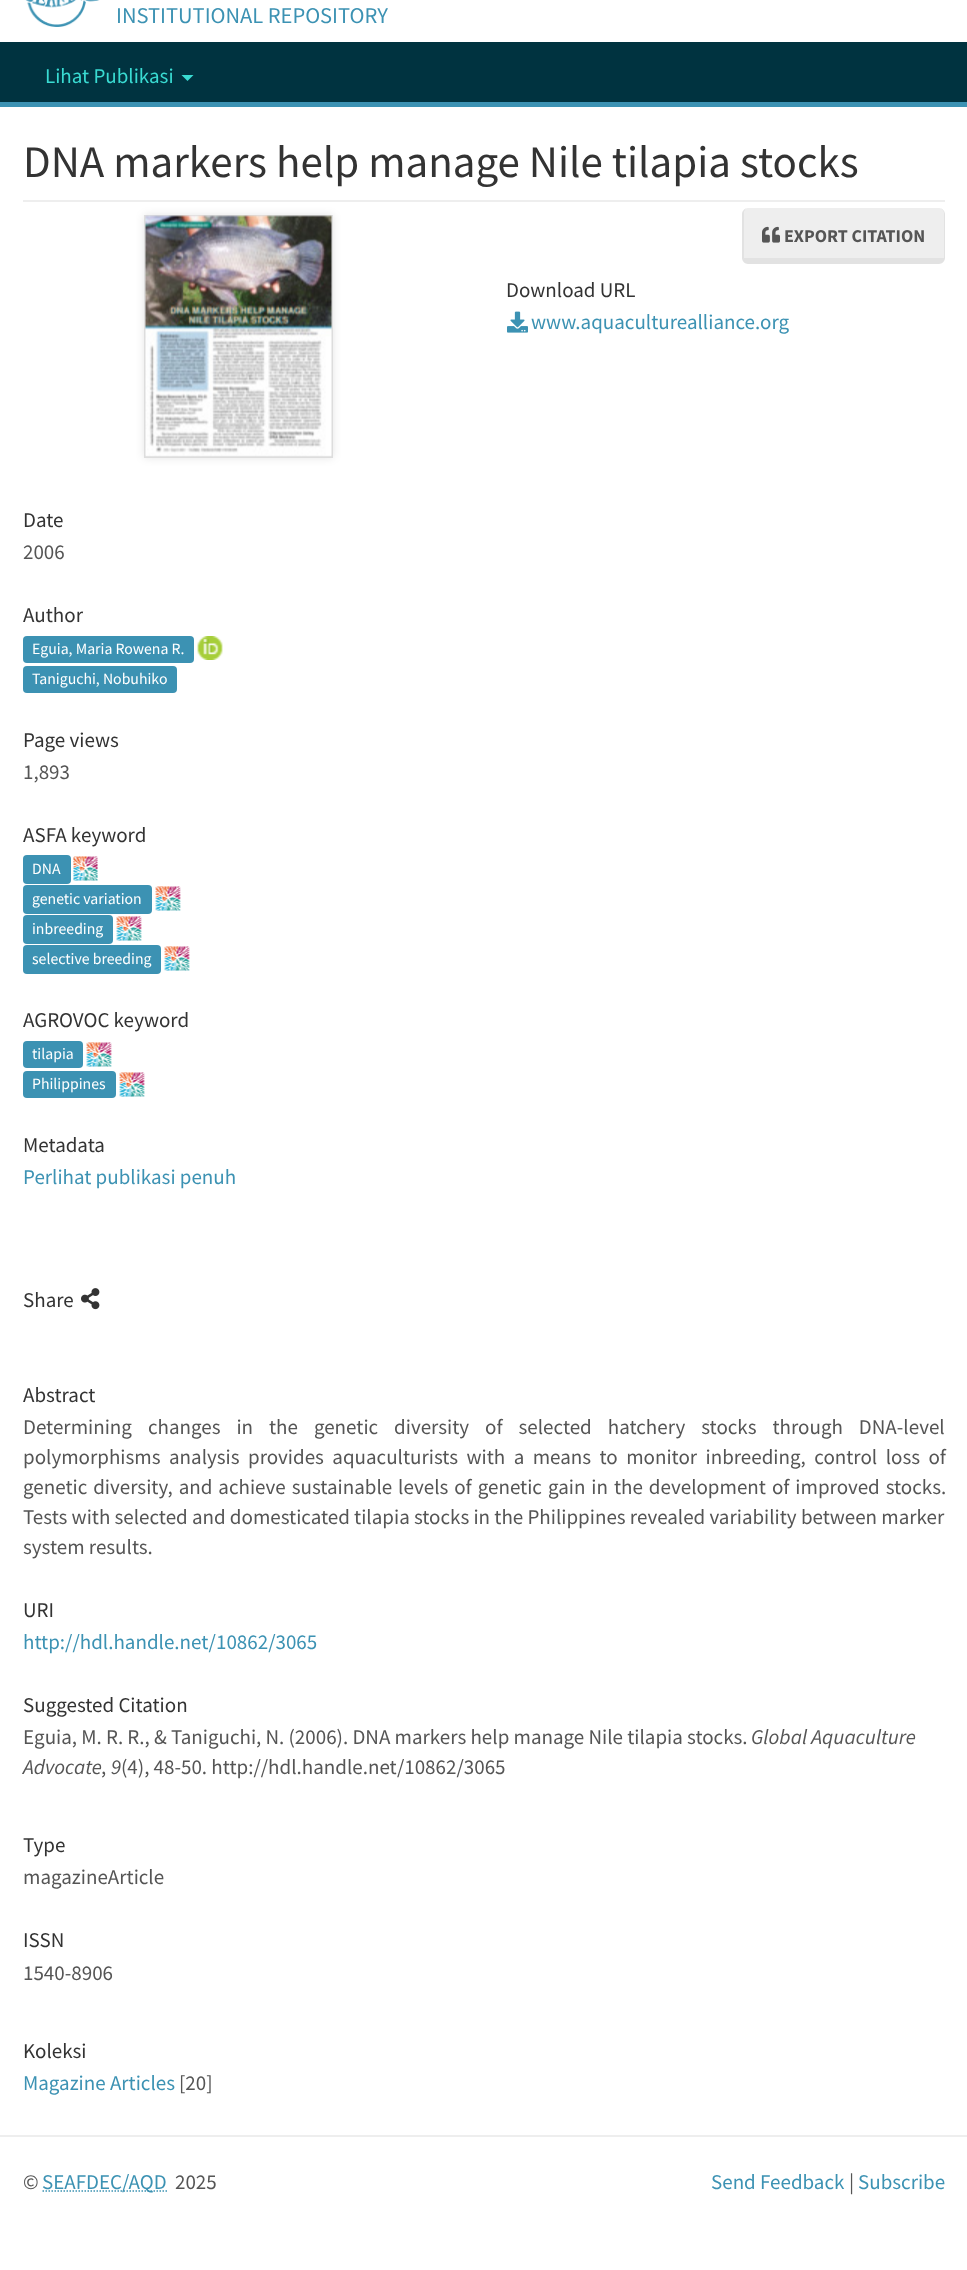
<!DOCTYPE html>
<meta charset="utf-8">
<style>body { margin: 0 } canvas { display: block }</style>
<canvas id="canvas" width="967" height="2270"></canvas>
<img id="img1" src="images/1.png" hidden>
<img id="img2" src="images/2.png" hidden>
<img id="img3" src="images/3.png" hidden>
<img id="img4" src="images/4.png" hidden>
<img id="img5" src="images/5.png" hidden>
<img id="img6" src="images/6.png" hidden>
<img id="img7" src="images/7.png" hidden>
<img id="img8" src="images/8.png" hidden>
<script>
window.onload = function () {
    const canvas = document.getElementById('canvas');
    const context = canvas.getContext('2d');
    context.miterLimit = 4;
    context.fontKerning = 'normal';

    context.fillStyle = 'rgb(255, 255, 255)';
    context.fillRect(0, 0, 967, 2270);
    context.drawImage(document.getElementById('img1'), 25, 0, 75, 27);
    context.fillStyle = 'rgb(0, 51, 64)';
    context.fillRect(0, 42, 967, 60);
    context.fillStyle = 'rgb(60, 146, 179)';
    context.fillRect(0, 102, 967, 5);
    context.fillStyle = 'rgb(57, 219, 210)';
    context.beginPath();
    context.moveTo(181.5, 75);
    context.lineTo(193.5, 75);
    context.lineTo(187.5, 81);
    context.closePath();
    context.fill();
    context.fillStyle = 'rgb(238, 238, 238)';
    context.fillRect(23, 200, 922, 2);
    context.beginPath();
    context.moveTo(748, 208);
    context.lineTo(939, 208);
    context.bezierCurveTo(941, 208, 944, 211, 944, 214);
    context.lineTo(944, 258);
    context.lineTo(744, 258);
    context.lineTo(744, 214);
    context.bezierCurveTo(744, 211, 746, 208, 748, 208);
    context.closePath();
    context.fill();
    context.fillStyle = 'rgb(226, 226, 226)';
    context.beginPath();
    context.moveTo(748, 208);
    context.lineTo(939, 208);
    context.bezierCurveTo(942, 208, 945, 211, 945, 214);
    context.lineTo(945, 258);
    context.bezierCurveTo(945, 261, 942, 264, 939, 264);
    context.lineTo(748, 264);
    context.bezierCurveTo(745, 264, 742, 261, 742, 258);
    context.lineTo(742, 214);
    context.bezierCurveTo(742, 211, 745, 208, 748, 208);
    context.closePath();
    context.moveTo(748, 208);
    context.lineTo(939, 208);
    context.bezierCurveTo(941, 208, 944, 211, 944, 214);
    context.lineTo(944, 258);
    context.lineTo(744, 258);
    context.lineTo(744, 214);
    context.bezierCurveTo(744, 211, 746, 208, 748, 208);
    context.closePath();
    context.fill('evenodd');
    context.drawImage(document.getElementById('img2'), 762, 226, 18, 17);
    context.fillStyle = 'rgba(0, 0, 0, 0.1)';
    context.filter = 'blur(4px)';
    context.beginPath();
    context.rect(144, 215, 189, 243);
    context.fill();
    context.filter = 'none';
    context.strokeStyle = 'rgb(221, 221, 221)';
    context.lineWidth = 2;
    context.strokeRect(145, 216, 187, 241);
    context.drawImage(document.getElementById('img3'), 145, 215, 187, 242);
    context.drawImage(document.getElementById('img4'), 507, 311, 21, 22);
    context.fillStyle = 'rgb(60, 146, 179)';
    context.beginPath();
    context.roundRect(23, 636, 171, 27, 4);
    context.fill();
    context.drawImage(document.getElementById('img5'), 197, 636, 26, 24);
    context.beginPath();
    context.roundRect(23, 666, 154, 27, 4);
    context.fill();
    context.beginPath();
    context.roundRect(23, 855, 48, 29, 4);
    context.fill();
    context.drawImage(document.getElementById('img6'), 73, 856, 25, 25);
    context.beginPath();
    context.roundRect(23, 885, 129, 29, 4);
    context.fill();
    context.drawImage(document.getElementById('img7'), 155, 886, 26, 25);
    context.beginPath();
    context.roundRect(23, 915, 90, 29, 4);
    context.fill();
    context.drawImage(document.getElementById('img7'), 116, 916, 26, 25);
    context.beginPath();
    context.roundRect(23, 945, 138, 29, 4);
    context.fill();
    context.drawImage(document.getElementById('img7'), 164, 946, 26, 25);
    context.beginPath();
    context.roundRect(23, 1041, 60, 27, 4);
    context.fill();
    context.drawImage(document.getElementById('img7'), 86, 1042, 26, 25);
    context.beginPath();
    context.roundRect(23, 1071, 93, 27, 4);
    context.fill();
    context.drawImage(document.getElementById('img7'), 119, 1072, 26, 25);
    context.drawImage(document.getElementById('img8'), 81, 1288, 19, 22);
    context.fillStyle = 'rgb(238, 238, 238)';
    context.fillRect(0, 2135, 967, 2);
    context.beginPath();
    context.moveTo(42.5, 2191);
    context.lineTo(167, 2191);
    context.strokeStyle = 'rgb(60, 146, 179)';
    context.lineWidth = 1.5;
    context.setLineDash([1.5, 1.5]);
    context.stroke();
    context.font = '22.5px Source Sans Pro';
    context.fillStyle = 'rgb(60, 146, 179)';
    context.fillText('INSTITUTIONAL REPOSITORY', 116, 23);
    context.font = '21px Source Sans Pro';
    context.fillStyle = 'rgb(57, 219, 210)';
    context.fillText('Lihat Publikasi', 45, 83);
    context.font = '45px Source Sans Pro';
    context.fillStyle = 'rgb(51, 51, 51)';
    context.fillText('DNA markers help manage Nile tilapia stocks', 23, 177);
    context.font = 'bold 18px Source Sans Pro';
    context.fillStyle = 'rgb(85, 85, 85)';
    context.fillText('EXPORT CITATION', 784, 242);
    context.font = '21px Source Sans Pro';
    context.fillStyle = 'rgb(51, 51, 51)';
    context.fillText('Download URL', 506, 297);
    context.fillStyle = 'rgb(60, 146, 179)';
    context.fillText('www.aquaculturealliance.org', 531, 329);
    context.fillStyle = 'rgb(51, 51, 51)';
    context.fillText('Date', 23, 527);
    context.fillStyle = 'rgb(85, 85, 85)';
    context.fillText('2006', 23, 559);
    context.fillStyle = 'rgb(51, 51, 51)';
    context.fillText('Author', 23, 622);
    context.font = '15.75px Source Sans Pro';
    context.fillStyle = 'rgb(255, 255, 255)';
    context.fillText('Eguia, Maria Rowena R.', 32, 654);
    context.fillText('Taniguchi, Nobuhiko', 32, 684);
    context.font = '21px Source Sans Pro';
    context.fillStyle = 'rgb(51, 51, 51)';
    context.fillText('Page views', 23, 747);
    context.fillStyle = 'rgb(85, 85, 85)';
    context.fillText('1,893', 23, 779);
    context.fillStyle = 'rgb(51, 51, 51)';
    context.fillText('ASFA keyword', 23, 842);
    context.font = '15.75px Source Sans Pro';
    context.fillStyle = 'rgb(255, 255, 255)';
    context.fillText('DNA', 32, 874);
    context.fillText('genetic variation', 32, 904);
    context.fillText('inbreeding', 32, 934);
    context.fillText('selective breeding', 32, 964);
    context.font = '21px Source Sans Pro';
    context.fillStyle = 'rgb(51, 51, 51)';
    context.fillText('AGROVOC keyword', 23, 1027);
    context.font = '15.75px Source Sans Pro';
    context.fillStyle = 'rgb(255, 255, 255)';
    context.fillText('tilapia', 32, 1059);
    context.fillText('Philippines', 32, 1089);
    context.font = '21px Source Sans Pro';
    context.fillStyle = 'rgb(51, 51, 51)';
    context.fillText('Metadata', 23, 1152);
    context.fillStyle = 'rgb(60, 146, 179)';
    context.fillText('Perlihat publikasi penuh', 23, 1184);
    context.fillStyle = 'rgb(51, 51, 51)';
    context.fillText('Share', 23, 1307);
    context.fillText('Abstract', 23, 1402);
    context.wordSpacing = '11.75px';
    context.fillStyle = 'rgb(85, 85, 85)';
    context.fillText('Determining changes in the genetic diversity of selected hatchery stocks through DNA-level', 23, 1434);
    context.wordSpacing = '4.25px';
    context.fillText('polymorphisms analysis provides aquaculturists with a means to monitor inbreeding, control loss of', 23, 1464);
    context.wordSpacing = '1.75px';
    context.fillText('genetic diversity, and achieve sustainable levels of genetic gain in the development of improved stocks.', 23, 1494);
    context.wordSpacing = '0px';
    context.fillText('Tests with selected and domesticated tilapia stocks in the Philippines revealed variability between marker', 23, 1524);
    context.fillText('system results.', 23, 1554);
    context.fillStyle = 'rgb(51, 51, 51)';
    context.fillText('URI', 23, 1617);
    context.fillStyle = 'rgb(60, 146, 179)';
    context.fillText('http://hdl.handle.net/10862/3065', 23, 1649);
    context.fillStyle = 'rgb(51, 51, 51)';
    context.fillText('Suggested Citation', 23, 1712);
    context.fillStyle = 'rgb(85, 85, 85)';
    context.fillText('Eguia, M. R. R., & Taniguchi, N. (2006). DNA markers help manage Nile tilapia stocks.', 23, 1744);
    context.font = 'italic 21px Source Sans Pro';
    context.fillText('Global Aquaculture', 751, 1744);
    context.fillText('Advocate', 23, 1774);
    context.font = '21px Source Sans Pro';
    context.fillText(',', 101, 1774);
    context.font = 'italic 21px Source Sans Pro';
    context.fillText('9', 111, 1774);
    context.font = '21px Source Sans Pro';
    context.fillText('(4), 48-50. http://hdl.handle.net/10862/3065', 121, 1774);
    context.fillStyle = 'rgb(51, 51, 51)';
    context.fillText('Type', 23, 1852);
    context.fillStyle = 'rgb(85, 85, 85)';
    context.fillText('magazineArticle', 23, 1884);
    context.fillStyle = 'rgb(51, 51, 51)';
    context.fillText('ISSN', 23, 1947);
    context.fillStyle = 'rgb(85, 85, 85)';
    context.fillText('1540-8906', 23, 1980);
    context.fillStyle = 'rgb(51, 51, 51)';
    context.fillText('Koleksi', 23, 2058);
    context.fillStyle = 'rgb(60, 146, 179)';
    context.fillText('Magazine Articles', 23, 2090);
    context.fillStyle = 'rgb(85, 85, 85)';
    context.fillText('[20]', 179, 2090);
    context.fillText('©', 23, 2189);
    context.fillStyle = 'rgb(60, 146, 179)';
    context.fillText('SEAFDEC/AQD', 42, 2189);
    context.fillStyle = 'rgb(85, 85, 85)';
    context.fillText('2025', 175, 2189);
    context.fillStyle = 'rgb(60, 146, 179)';
    context.fillText('Send Feedback', 711, 2189);
    context.fillStyle = 'rgb(85, 85, 85)';
    context.fillText('|', 849, 2189);
    context.fillStyle = 'rgb(60, 146, 179)';
    context.fillText('Subscribe', 858, 2189);
};
</script>
